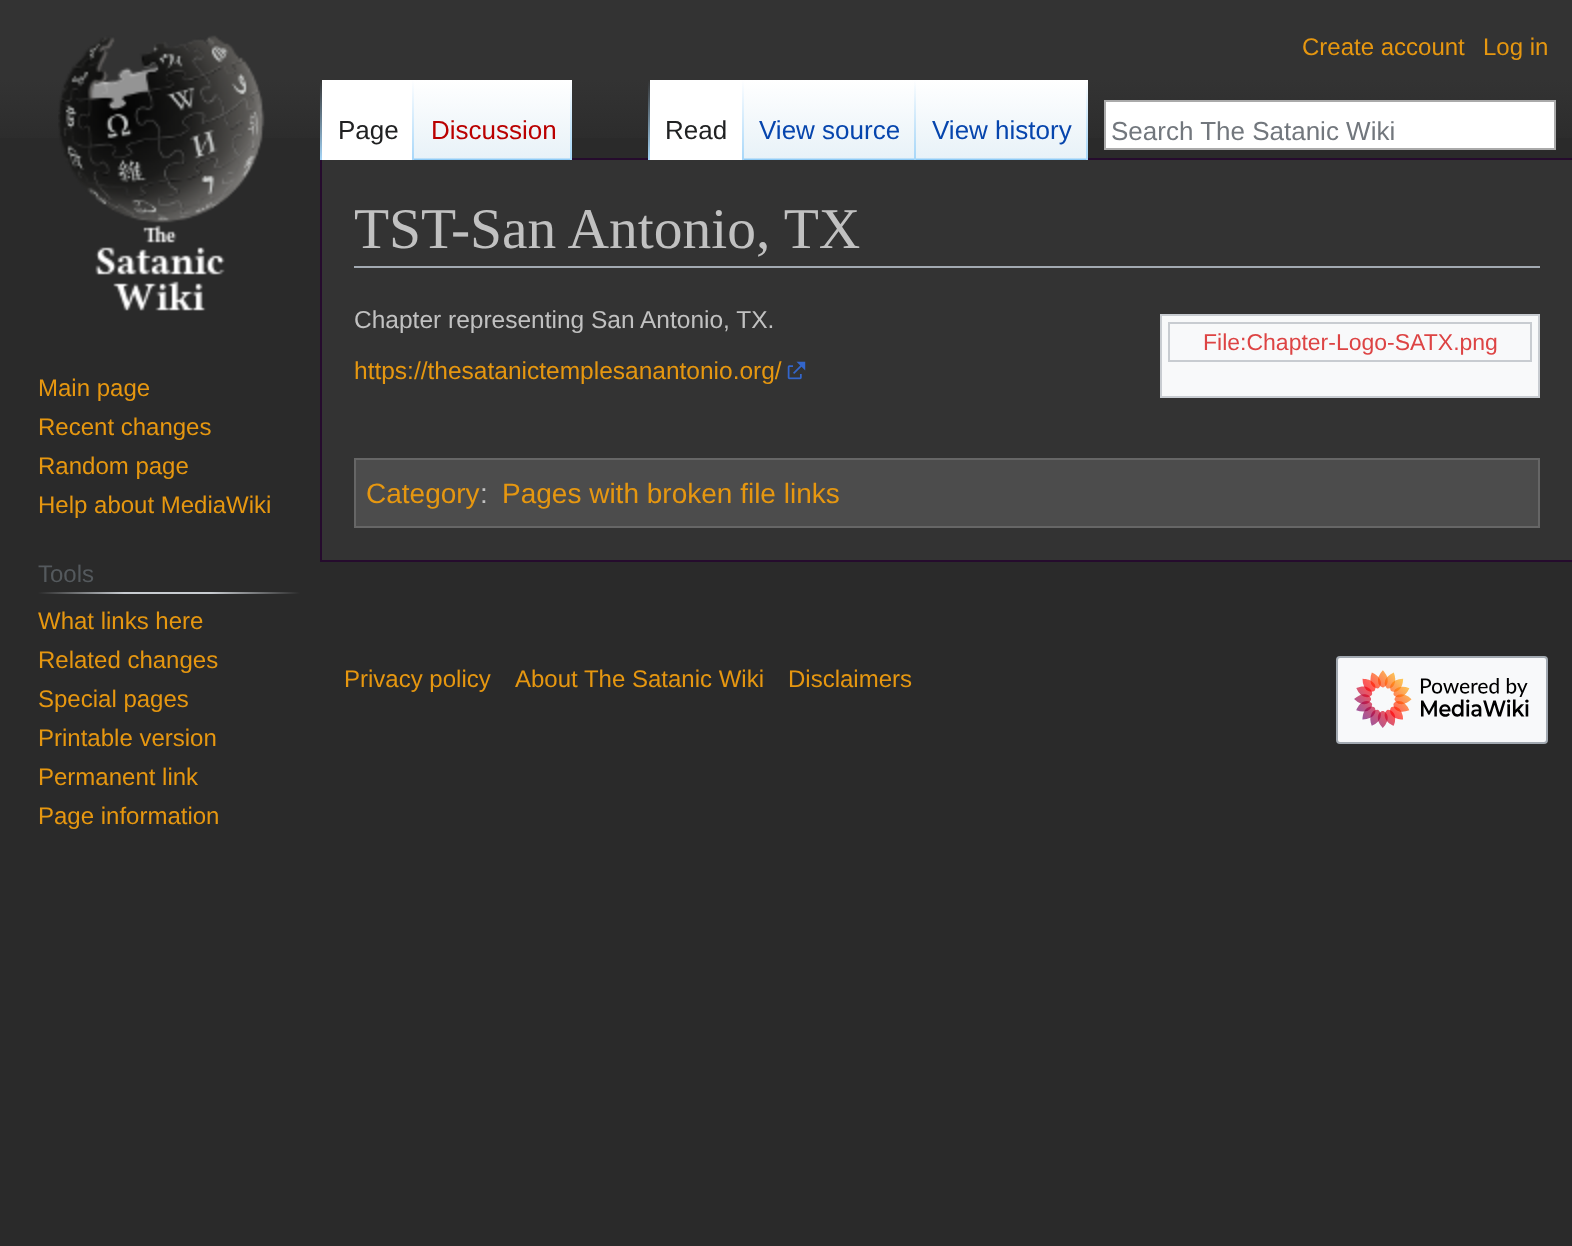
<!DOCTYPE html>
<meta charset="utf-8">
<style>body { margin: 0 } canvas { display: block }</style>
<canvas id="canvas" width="1572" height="1246"></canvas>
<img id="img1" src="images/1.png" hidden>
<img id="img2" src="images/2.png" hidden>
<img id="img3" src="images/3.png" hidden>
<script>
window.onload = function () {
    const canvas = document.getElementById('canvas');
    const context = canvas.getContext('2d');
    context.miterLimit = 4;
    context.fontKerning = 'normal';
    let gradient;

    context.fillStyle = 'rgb(42, 42, 42)';
    context.fillRect(0, 0, 1572, 1246);
    gradient = context.createLinearGradient(786, 0, 786, 160);
    gradient.addColorStop(0.5, 'rgb(51, 51, 51)');
    gradient.addColorStop(1, 'rgb(42, 42, 42)');
    context.fillStyle = gradient;
    context.fillRect(0, 0, 1572, 138);
    context.fillStyle = 'rgb(37, 11, 45)';
    context.fillRect(320, 560, 1252, 2);
    context.fillRect(320, 158, 2, 404);
    gradient = context.createLinearGradient(321, 80, 321, 160);
    gradient.addColorStop(0, 'rgba(167, 215, 249, 0)');
    gradient.addColorStop(1, 'rgb(167, 215, 249)');
    context.fillStyle = gradient;
    context.fillRect(320, 80, 2, 80);
    context.fillStyle = 'rgb(255, 255, 255)';
    context.fillRect(322, 80, 90, 80);
    gradient = context.createLinearGradient(413, 80, 413, 160);
    gradient.addColorStop(0, 'rgb(255, 255, 255)');
    gradient.addColorStop(1, 'rgb(167, 215, 249)');
    context.fillStyle = gradient;
    context.fillRect(412, 80, 2, 80);
    gradient = context.createLinearGradient(493, 160, 493, 80);
    gradient.addColorStop(0, 'rgb(119, 193, 246)');
    gradient.addColorStop(0.03, 'rgb(232, 242, 248)');
    gradient.addColorStop(1, 'rgb(255, 255, 255)');
    context.fillStyle = gradient;
    context.fillRect(414, 80, 158, 80);
    gradient = context.createLinearGradient(571, 80, 571, 160);
    gradient.addColorStop(0, 'rgba(167, 215, 249, 0)');
    gradient.addColorStop(1, 'rgb(167, 215, 249)');
    context.fillStyle = gradient;
    context.fillRect(570, 80, 2, 80);
    context.fillStyle = 'rgb(37, 11, 45)';
    context.fillRect(572, 158, 1000, 2);
    gradient = context.createLinearGradient(649, 80, 649, 160);
    gradient.addColorStop(0, 'rgba(167, 215, 249, 0)');
    gradient.addColorStop(1, 'rgb(167, 215, 249)');
    context.fillStyle = gradient;
    context.fillRect(648, 80, 2, 80);
    context.fillStyle = 'rgb(255, 255, 255)';
    context.fillRect(650, 80, 92, 80);
    gradient = context.createLinearGradient(743, 80, 743, 160);
    gradient.addColorStop(0, 'rgb(255, 255, 255)');
    gradient.addColorStop(1, 'rgb(167, 215, 249)');
    context.fillStyle = gradient;
    context.fillRect(742, 80, 2, 80);
    gradient = context.createLinearGradient(830, 160, 830, 80);
    gradient.addColorStop(0, 'rgb(119, 193, 246)');
    gradient.addColorStop(0.03, 'rgb(232, 242, 248)');
    gradient.addColorStop(1, 'rgb(255, 255, 255)');
    context.fillStyle = gradient;
    context.fillRect(744, 80, 172, 80);
    gradient = context.createLinearGradient(915, 80, 915, 160);
    gradient.addColorStop(0, 'rgba(167, 215, 249, 0)');
    gradient.addColorStop(1, 'rgb(167, 215, 249)');
    context.fillStyle = gradient;
    context.fillRect(914, 80, 2, 80);
    gradient = context.createLinearGradient(1002, 160, 1002, 80);
    gradient.addColorStop(0, 'rgb(119, 193, 246)');
    gradient.addColorStop(0.03, 'rgb(232, 242, 248)');
    gradient.addColorStop(1, 'rgb(255, 255, 255)');
    context.fillStyle = gradient;
    context.fillRect(916, 80, 172, 80);
    gradient = context.createLinearGradient(1087, 80, 1087, 160);
    gradient.addColorStop(0, 'rgba(167, 215, 249, 0)');
    gradient.addColorStop(1, 'rgb(167, 215, 249)');
    context.fillStyle = gradient;
    context.fillRect(1086, 80, 2, 80);
    context.fillStyle = 'rgb(255, 255, 255)';
    context.beginPath();
    context.rect(1105, 101, 450, 48);
    context.fill();
    context.strokeStyle = 'rgb(170, 170, 170)';
    context.lineWidth = 2;
    context.stroke();
    context.drawImage(document.getElementById('img1'), 58, 35, 207, 276);
    gradient = context.createLinearGradient(38, 593, 300, 593);
    gradient.addColorStop(0, 'rgb(42, 42, 42)');
    gradient.addColorStop(0.33, 'rgb(200, 204, 209)');
    gradient.addColorStop(0.66, 'rgb(200, 204, 209)');
    gradient.addColorStop(1, 'rgb(42, 42, 42)');
    context.fillStyle = gradient;
    context.fillRect(38, 592, 262, 2);
    context.fillStyle = 'rgb(51, 51, 51)';
    context.fillRect(322, 160, 1250, 400);
    context.fillStyle = 'rgb(162, 169, 177)';
    context.fillRect(354, 266, 1186, 2);
    context.fillStyle = 'rgb(248, 249, 250)';
    context.fillRect(1162, 316, 376, 80);
    context.fillStyle = 'rgb(200, 204, 209)';
    context.fillRect(1160, 314, 380, 2);
    context.fillRect(1160, 396, 380, 2);
    context.fillRect(1538, 314, 2, 84);
    context.fillRect(1160, 314, 2, 84);
    context.strokeStyle = 'rgb(200, 204, 209)';
    context.strokeRect(1169, 323, 362, 38);
    context.drawImage(document.getElementById('img2'), 787, 361, 19, 19);
    context.fillStyle = 'rgb(76, 76, 76)';
    context.beginPath();
    context.rect(355, 459, 1184, 68);
    context.fill();
    context.strokeStyle = 'rgb(102, 102, 102)';
    context.stroke();
    context.fillStyle = 'rgb(248, 249, 250)';
    context.beginPath();
    context.roundRect(1337, 657, 210, 86, 3);
    context.fill();
    context.strokeStyle = 'rgb(162, 169, 177)';
    context.stroke();
    context.drawImage(document.getElementById('img3'), 1354, 670, 175, 58);
    context.font = '24px Liberation Sans';
    context.fillStyle = 'rgb(230, 151, 16)';
    context.fillText('Create account', 1302, 55);
    context.fillText('Log in', 1483, 55);
    context.font = '26px Liberation Sans';
    context.fillStyle = 'rgb(32, 33, 34)';
    context.fillText('Page', 338, 139);
    context.fillStyle = 'rgb(186, 0, 0)';
    context.fillText('Discussion', 431, 139);
    context.fillStyle = 'rgb(32, 33, 34)';
    context.fillText('Read', 665, 139);
    context.fillStyle = 'rgb(6, 69, 173)';
    context.fillText('View source', 759, 139);
    context.fillText('View history', 932, 139);
    context.fillStyle = 'rgb(114, 119, 125)';
    context.fillText('Search The Satanic Wiki', 1111, 140);
    context.font = '24px Liberation Sans';
    context.fillStyle = 'rgb(230, 151, 16)';
    context.fillText('Main page', 38, 396);
    context.fillText('Recent changes', 38, 435);
    context.fillText('Random page', 38, 474);
    context.fillText('Help about MediaWiki', 38, 513);
    context.fillStyle = 'rgb(84, 89, 93)';
    context.fillText('Tools', 38, 582);
    context.fillStyle = 'rgb(230, 151, 16)';
    context.fillText('What links here', 38, 629);
    context.fillText('Related changes', 38, 668);
    context.fillText('Special pages', 38, 707);
    context.fillText('Printable version', 38, 746);
    context.fillText('Permanent link', 38, 785);
    context.fillText('Page information', 38, 824);
    context.font = '57.5px Liberation Serif';
    context.fillStyle = 'rgb(193, 193, 193)';
    context.fillText('TST-San Antonio, TX', 354, 248);
    context.font = '24.5px Liberation Sans';
    context.fillText('Chapter representing San Antonio, TX.', 354, 328);
    context.font = '23px Liberation Sans';
    context.fillStyle = 'rgb(221, 68, 68)';
    context.fillText('File:Chapter-Logo-SATX.png', 1203, 350);
    context.font = '24.5px Liberation Sans';
    context.fillStyle = 'rgb(230, 151, 16)';
    context.fillText('https://thesatanictemplesanantonio.org/', 354, 379);
    context.font = '28px Liberation Sans';
    context.fillText('Category', 366, 503);
    context.fillStyle = 'rgb(193, 193, 193)';
    context.fillText(':', 480, 503);
    context.fillStyle = 'rgb(230, 151, 16)';
    context.fillText('Pages with broken file links', 502, 503);
    context.font = '24px Liberation Sans';
    context.fillText('Privacy policy', 344, 687);
    context.fillText('About The Satanic Wiki', 515, 687);
    context.fillText('Disclaimers', 788, 687);
};
</script>
